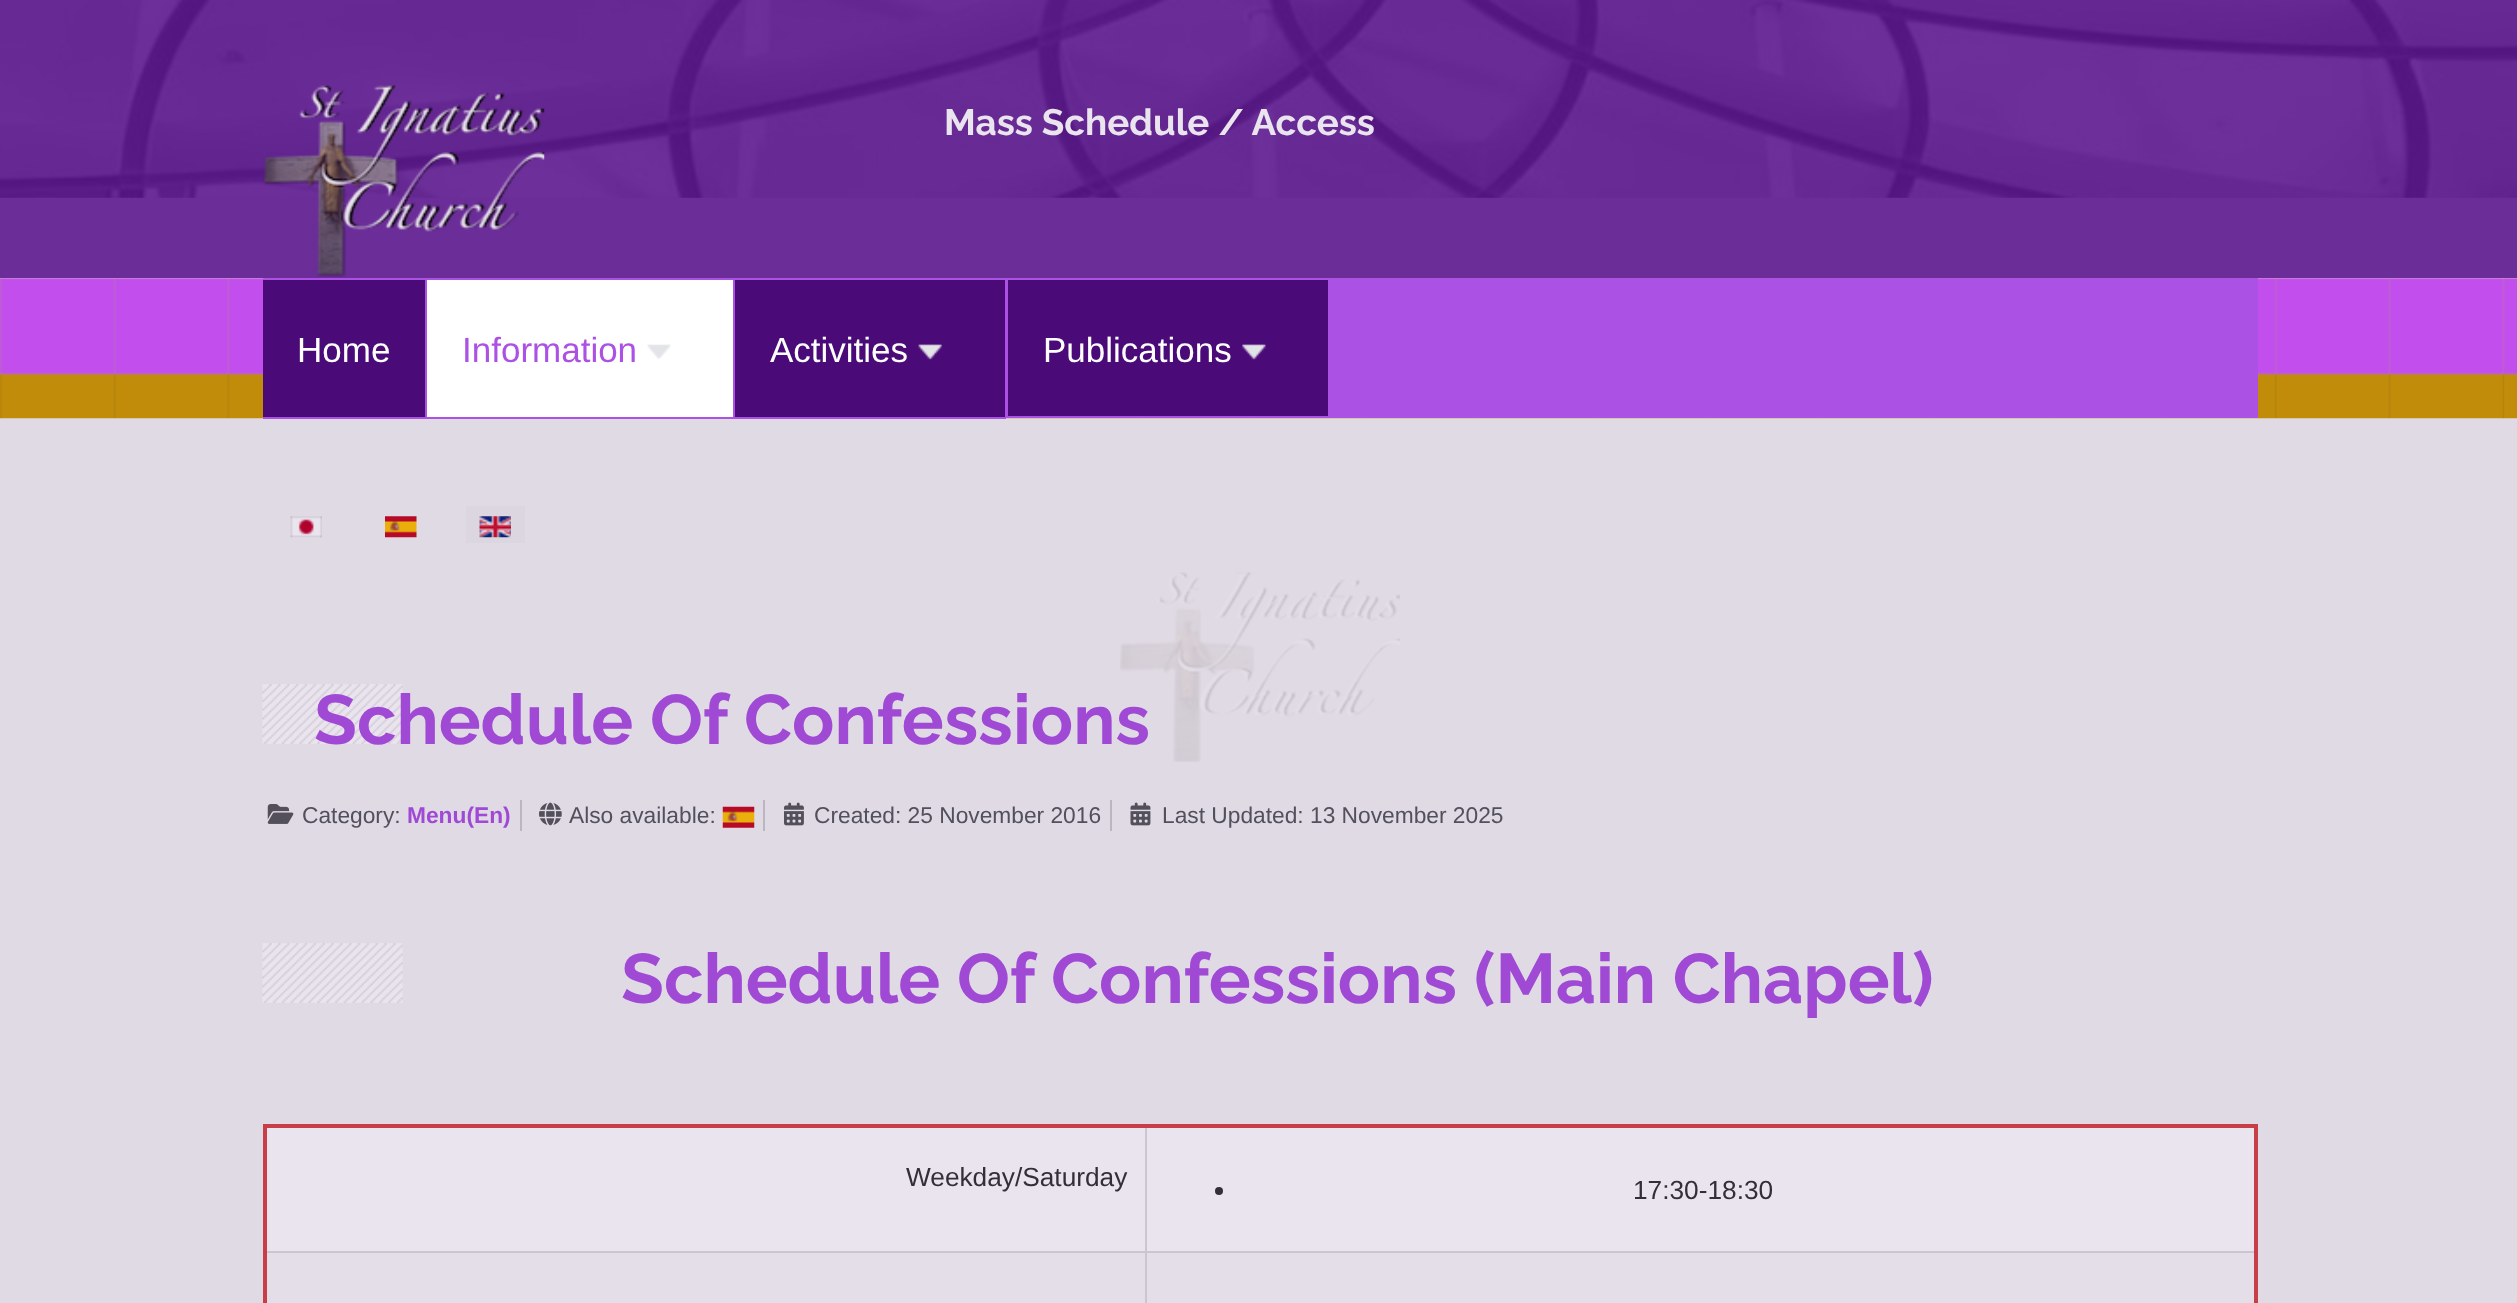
<!DOCTYPE html>
<meta charset="utf-8">
<style>body { margin: 0 } canvas { display: block }</style>
<canvas id="canvas" width="2517" height="1303"></canvas>
<img id="img1" src="images/1.png" hidden>
<img id="img2" src="images/2.png" hidden>
<img id="img3" src="images/3.png" hidden>
<img id="img4" src="images/4.png" hidden>
<img id="img5" src="images/5.png" hidden>
<img id="img6" src="images/6.png" hidden>
<img id="img7" src="images/7.png" hidden>
<img id="img8" src="images/8.png" hidden>
<img id="img9" src="images/9.png" hidden>
<img id="img10" src="images/10.png" hidden>
<img id="img11" src="images/11.png" hidden>
<img id="img12" src="images/12.png" hidden>
<img id="img13" src="images/13.png" hidden>
<img id="img14" src="images/14.png" hidden>
<img id="img15" src="images/15.png" hidden>
<img id="img16" src="images/16.png" hidden>
<script>
window.onload = function () {
    const canvas = document.getElementById('canvas');
    const context = canvas.getContext('2d');
    context.miterLimit = 4;
    context.fontKerning = 'normal';

    context.fillStyle = 'rgb(224, 218, 228)';
    context.fillRect(0, 0, 2517, 1303);
    context.fillStyle = 'rgb(107, 45, 152)';
    context.fillRect(0, 197, 2517, 81);
    context.drawImage(document.getElementById('img1'), 0, 0, 2517, 198);
    context.drawImage(document.getElementById('img2'), 263, 84, 282, 193);
    context.drawImage(document.getElementById('img3'), 0, 278, 2517, 141);
    context.fillStyle = 'rgb(171, 81, 227)';
    context.fillRect(1330, 278, 928, 140);
    context.fillStyle = 'rgb(74, 10, 119)';
    context.fillRect(263, 280, 162, 137);
    context.fillStyle = 'rgb(171, 81, 227)';
    context.fillRect(263, 278, 743, 2);
    context.fillRect(425, 278, 2, 140);
    context.fillRect(263, 417, 164, 2);
    context.fillStyle = 'rgb(255, 255, 255)';
    context.fillRect(427, 280, 306, 137);
    context.fillStyle = 'rgb(171, 81, 227)';
    context.fillRect(733, 278, 2, 140);
    context.fillRect(427, 417, 308, 2);
    context.drawImage(document.getElementById('img4'), 647, 344, 24, 15);
    context.fillStyle = 'rgb(74, 10, 119)';
    context.fillRect(735, 280, 270, 137);
    context.fillStyle = 'rgb(171, 81, 227)';
    context.fillRect(1005, 278, 1, 140);
    context.fillRect(735, 417, 271, 2);
    context.drawImage(document.getElementById('img5'), 918, 344, 24, 16);
    context.fillStyle = 'rgb(74, 10, 119)';
    context.beginPath();
    context.rect(1007, 279, 322, 138);
    context.fill();
    context.strokeStyle = 'rgb(171, 81, 227)';
    context.lineWidth = 2;
    context.stroke();
    context.drawImage(document.getElementById('img6'), 1242, 344, 24, 16);
    context.drawImage(document.getElementById('img7'), 290, 516, 32, 22);
    context.drawImage(document.getElementById('img8'), 385, 516, 32, 22);
    context.fillStyle = 'rgb(220, 214, 224)';
    context.fillRect(466, 506, 59, 37);
    context.drawImage(document.getElementById('img9'), 479, 516, 32, 22);
    context.drawImage(document.getElementById('img10'), 262, 684, 141, 60);
    context.fillStyle = 'rgb(188, 182, 192)';
    context.fillRect(520, 800, 2, 31);
    context.drawImage(document.getElementById('img11'), 267, 804, 27, 20);
    context.fillRect(763, 800, 2, 31);
    context.drawImage(document.getElementById('img12'), 539, 802, 23, 24);
    context.drawImage(document.getElementById('img13'), 722, 806, 33, 22);
    context.fillRect(1110, 800, 2, 31);
    context.drawImage(document.getElementById('img14'), 784, 802, 20, 24);
    context.drawImage(document.getElementById('img15'), 1130, 802, 21, 24);
    context.drawImage(document.getElementById('img10'), 262, 943, 141, 60);
    context.fillStyle = 'rgb(234, 228, 238)';
    context.fillRect(267, 1128, 1987, 123);
    context.fillStyle = 'rgb(203, 197, 208)';
    context.fillRect(1145, 1251, 1111, 2);
    context.fillStyle = 'rgb(228, 222, 233)';
    context.fillRect(267, 1253, 1987, 50);
    context.fillStyle = 'rgb(203, 197, 208)';
    context.fillRect(1145, 1251, 2, 52);
    context.fillRect(263, 1251, 883, 2);
    context.fillRect(1145, 1125, 2, 128);
    context.fillStyle = 'rgb(200, 62, 72)';
    context.fillRect(263, 1124, 1995, 4);
    context.fillRect(2254, 1124, 4, 179);
    context.fillRect(263, 1124, 4, 179);
    context.fillStyle = 'rgb(52, 46, 56)';
    context.beginPath();
    context.arc(1219, 1191, 4, 0, 2 * Math.PI);
    context.fill();
    context.font = 'bold 36.75px Raleway';
    context.fillStyle = 'rgb(234, 228, 238)';
    context.fillText('Mass Schedule / Access', 944, 135);
    context.font = '35px Liberation Sans';
    context.fillStyle = 'rgb(255, 255, 255)';
    context.fillText('Home', 297, 362);
    context.fillStyle = 'rgb(171, 81, 227)';
    context.fillText('Information', 462, 362);
    context.fillStyle = 'rgb(255, 255, 255)';
    context.fillText('Activities', 770, 362);
    context.fillText('Publications', 1043, 362);
    context.font = 'bold 70px Raleway';
    context.fillStyle = 'rgb(159, 73, 213)';
    context.fillText('Schedule Of Confessions', 314, 744);
    context.font = '22.75px Liberation Sans';
    context.fillStyle = 'rgb(83, 80, 93)';
    context.fillText('Category:', 302, 823);
    context.font = 'bold 22.75px Liberation Sans';
    context.fillStyle = 'rgb(159, 73, 213)';
    context.fillText('Menu(En)', 407, 823);
    context.font = '22.75px Liberation Sans';
    context.fillStyle = 'rgb(83, 80, 93)';
    context.fillText('Also available:', 569, 823);
    context.fillText('Created: 25 November 2016', 814, 823);
    context.fillText('Last Updated: 13 November 2025', 1162, 823);
    context.font = 'bold 70px Raleway';
    context.fillStyle = 'rgb(159, 73, 213)';
    context.fillText('Schedule Of Confessions (Main Chapel)', 621, 1003);
    context.font = '26.25px Liberation Sans';
    context.fillStyle = 'rgb(52, 46, 56)';
    context.fillText('Weekday/Saturday', 906, 1186);
    context.fillText('17:30-18:30', 1633, 1199);
    context.drawImage(document.getElementById('img16'), 1120, 572, 280, 190);
};
</script>
